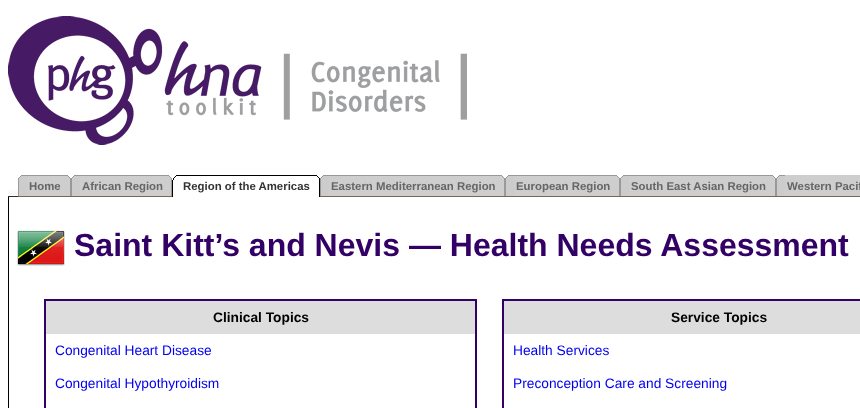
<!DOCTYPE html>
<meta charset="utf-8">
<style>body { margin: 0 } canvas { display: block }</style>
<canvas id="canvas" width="860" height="408"></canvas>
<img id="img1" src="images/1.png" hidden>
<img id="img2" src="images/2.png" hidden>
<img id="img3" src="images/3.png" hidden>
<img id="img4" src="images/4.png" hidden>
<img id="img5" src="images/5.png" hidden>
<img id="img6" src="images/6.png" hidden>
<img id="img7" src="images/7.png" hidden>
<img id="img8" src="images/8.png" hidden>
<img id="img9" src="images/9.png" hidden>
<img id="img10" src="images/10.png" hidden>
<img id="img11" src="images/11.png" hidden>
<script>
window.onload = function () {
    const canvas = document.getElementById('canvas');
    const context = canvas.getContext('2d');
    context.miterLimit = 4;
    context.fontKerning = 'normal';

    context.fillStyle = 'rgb(255, 255, 255)';
    context.fillRect(0, 0, 860, 408);
    context.drawImage(document.getElementById('img1'), 8, 16, 459, 129);
    context.fillStyle = 'rgb(0, 0, 0)';
    context.fillRect(8, 197, 1, 211);
    context.drawImage(document.getElementById('img2'), 8, 190, 10, 7);
    context.drawImage(document.getElementById('img3'), 18, 175, 9, 21);
    context.fillStyle = 'rgb(119, 102, 85)';
    context.fillRect(18, 196, 154, 1);
    context.drawImage(document.getElementById('img4'), 27, 175, 44, 21);
    context.drawImage(document.getElementById('img3'), 71, 175, 9, 21);
    context.drawImage(document.getElementById('img5'), 80, 175, 92, 21);
    context.drawImage(document.getElementById('img6'), 172, 175, 9, 22);
    context.drawImage(document.getElementById('img7'), 181, 175, 139, 22);
    context.drawImage(document.getElementById('img3'), 320, 175, 9, 21);
    context.fillRect(320, 196, 540, 1);
    context.drawImage(document.getElementById('img8'), 329, 175, 176, 21);
    context.drawImage(document.getElementById('img3'), 505, 175, 9, 21);
    context.drawImage(document.getElementById('img9'), 514, 175, 106, 21);
    context.drawImage(document.getElementById('img3'), 620, 175, 9, 21);
    context.drawImage(document.getElementById('img10'), 629, 175, 147, 21);
    context.drawImage(document.getElementById('img3'), 776, 175, 9, 21);
    context.fillStyle = 'rgb(206, 206, 206)';
    context.fillRect(785, 175, 75, 21);
    context.drawImage(document.getElementById('img11'), 17, 230, 48, 36);
    context.fillStyle = 'rgb(221, 221, 221)';
    context.fillRect(46, 301, 429, 33);
    context.fillStyle = 'rgb(51, 0, 102)';
    context.fillRect(44, 299, 433, 2);
    context.fillRect(475, 299, 2, 109);
    context.fillRect(44, 299, 2, 109);
    context.fillStyle = 'rgb(221, 221, 221)';
    context.fillRect(504, 301, 356, 33);
    context.fillStyle = 'rgb(51, 0, 102)';
    context.fillRect(502, 299, 358, 2);
    context.fillRect(502, 299, 2, 109);
    context.font = 'bold 11.4px Liberation Sans';
    context.fillStyle = 'rgb(102, 102, 102)';
    context.fillText('Home', 29, 190);
    context.fillText('African Region', 82, 190);
    context.fillStyle = 'rgb(51, 51, 51)';
    context.fillText('Region of the Americas', 183, 190);
    context.fillStyle = 'rgb(102, 102, 102)';
    context.fillText('Eastern Mediterranean Region', 331, 190);
    context.fillText('European Region', 516, 190);
    context.fillText('South East Asian Region', 631, 190);
    context.fillText('Western Pacif', 787, 190);
    context.font = 'bold 32px Liberation Sans';
    context.fillStyle = 'rgb(51, 0, 102)';
    context.fillText('Saint Kitt’s and Nevis — Health Needs Assessment', 74, 256);
    context.font = 'bold 13.75px Liberation Sans';
    context.fillStyle = 'rgb(0, 0, 0)';
    context.fillText('Clinical Topics', 213, 322);
    context.fillText('Service Topics', 671, 322);
    context.font = '13.75px Liberation Sans';
    context.fillStyle = 'rgb(0, 0, 238)';
    context.fillText('Congenital Heart Disease', 55, 355);
    context.fillText('Health Services', 513, 355);
    context.fillText('Congenital Hypothyroidism', 55, 388);
    context.fillText('Preconception Care and Screening', 513, 388);
};
</script>
